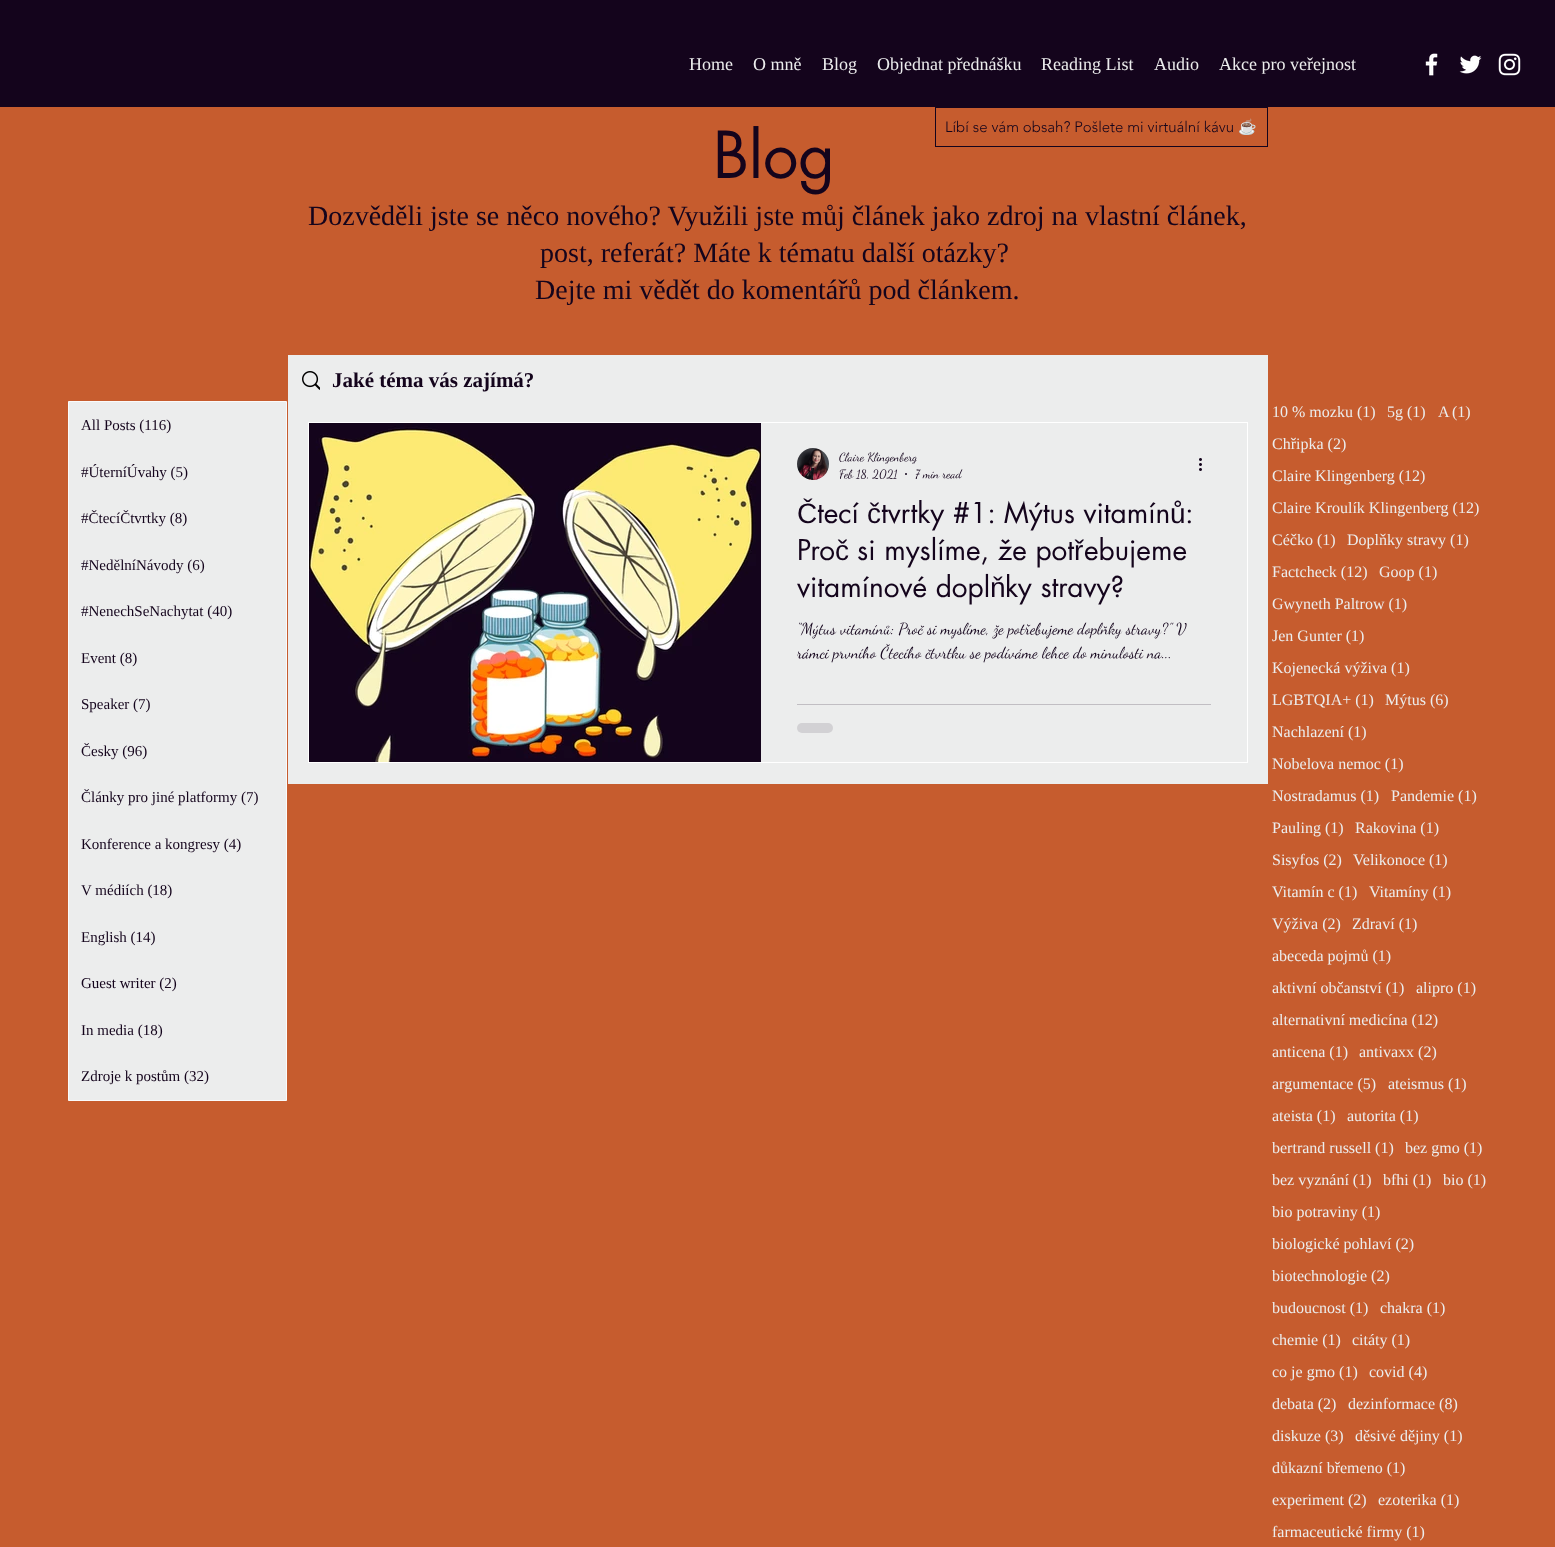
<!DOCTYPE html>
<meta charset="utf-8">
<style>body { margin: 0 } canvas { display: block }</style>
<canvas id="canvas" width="1555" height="1547"></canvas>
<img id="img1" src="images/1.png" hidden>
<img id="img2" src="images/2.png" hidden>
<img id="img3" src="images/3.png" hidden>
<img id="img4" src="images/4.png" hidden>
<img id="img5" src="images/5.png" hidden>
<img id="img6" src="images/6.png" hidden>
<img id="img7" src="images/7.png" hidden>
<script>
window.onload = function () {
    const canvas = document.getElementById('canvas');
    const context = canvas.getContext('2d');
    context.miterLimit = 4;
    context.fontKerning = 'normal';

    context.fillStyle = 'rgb(198, 92, 46)';
    context.fillRect(0, 0, 1555, 1547);
    context.fillStyle = 'rgb(20, 4, 28)';
    context.fillRect(0, 0, 1555, 107);
    context.drawImage(document.getElementById('img1'), 1425, 53, 13, 23);
    context.drawImage(document.getElementById('img2'), 1459, 55, 23, 19);
    context.drawImage(document.getElementById('img3'), 1498, 53, 23, 23);
    context.strokeStyle = 'rgb(20, 4, 28)';
    context.strokeRect(935.5, 107.5, 332, 39);
    context.fillStyle = 'rgb(236, 237, 237)';
    context.fillRect(288, 355, 980, 429);
    context.drawImage(document.getElementById('img4'), 302, 371, 18, 19);
    context.beginPath();
    context.rect(68.5, 401.5, 218, 699);
    context.fill();
    context.strokeStyle = 'rgb(250, 251, 251)';
    context.stroke();
    context.strokeStyle = 'rgb(255, 255, 255)';
    context.strokeRect(308.5, 422.5, 939, 340);
    context.drawImage(document.getElementById('img5'), 309, 423, 452, 339);
    context.drawImage(document.getElementById('img6'), 797, 448, 32, 32);
    context.fillStyle = 'rgb(20, 4, 28)';
    context.beginPath();
    context.arc(906, 474, 1, 0, 2 * Math.PI);
    context.fill();
    context.drawImage(document.getElementById('img7'), 1199, 458, 3, 13);
    context.fillStyle = 'rgb(193, 190, 195)';
    context.fillRect(797, 704, 414, 1);
    context.fillStyle = 'rgb(210, 209, 212)';
    context.beginPath();
    context.roundRect(797, 723, 36, 10, 5);
    context.fill();
    context.font = '18px Liberation Serif';
    context.fillStyle = 'rgb(236, 237, 237)';
    context.fillText('Home', 689, 70);
    context.fillText('O mně', 753, 70);
    context.fillText('Blog', 822, 70);
    context.fillText('Objednat přednášku', 877, 70);
    context.fillText('Reading List', 1041, 70);
    context.fillText('Audio', 1154, 70);
    context.fillText('Akce pro veřejnost', 1219, 70);
    context.font = '63px futura';
    context.fillStyle = 'rgb(20, 4, 28)';
    context.fillText('Blog', 713, 178);
    context.font = '300 15px "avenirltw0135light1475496"';
    context.fillText('Líbí se vám obsah? Pošlete mi virtuální kávu', 945, 132);
    context.font = '15px Noto Color Emoji';
    context.fillText('☕️', 1238, 132);
    context.font = '28px Liberation Serif';
    context.fillText('Dozvěděli jste se něco nového? Využili jste můj článek jako zdroj na vlastní článek,', 308, 225);
    context.fillText('post, referát? Máte k tématu další otázky?', 540, 262);
    context.fillText('Dejte mi vědět do komentářů pod článkem.', 535, 299);
    context.font = 'bold 21px Liberation Serif';
    context.fillText('Jaké téma vás zajímá?', 332, 387);
    context.font = '15px Liberation Serif';
    context.fillText('All Posts (116)', 81, 430);
    context.fillText('#ÚterníÚvahy (5)', 81, 477);
    context.fillText('#ČtecíČtvrtky (8)', 81, 523);
    context.fillText('#NedělníNávody (6)', 81, 570);
    context.fillText('#NenechSeNachytat (40)', 81, 616);
    context.fillText('Event (8)', 81, 663);
    context.fillText('Speaker (7)', 81, 709);
    context.fillText('Česky (96)', 81, 756);
    context.fillText('Články pro jiné platformy (7)', 81, 802);
    context.fillText('Konference a kongresy (4)', 81, 849);
    context.fillText('V médiích (18)', 81, 895);
    context.fillText('English (14)', 81, 942);
    context.fillText('Guest writer (2)', 81, 988);
    context.fillText('In media (18)', 81, 1035);
    context.fillText('Zdroje k postům (32)', 81, 1081);
    context.save();
    context.beginPath();
    context.rect(839, 450, 78, 14);
    context.clip();
    context.font = '12px Dancing Script';
    context.fillText('Claire Klingenberg', 839, 461);
    context.restore();
    context.font = '12px Dancing Script';
    context.fillText('Feb 18, 2021', 839, 478);
    context.fillText('7 min read', 915, 478);
    context.font = '28px Liberation Sans';
    context.fillText('Č', 797, 523);
    context.font = '28px futura';
    context.fillText('tecí', 817, 523);
    context.font = '28px Liberation Sans';
    context.fillText('č', 867, 523);
    context.font = '28px futura';
    context.fillText('tvrtky #1: Mýtus vitamín', 881, 523);
    context.font = '28px Liberation Sans';
    context.fillText('ů', 1170, 523);
    context.font = '28px futura';
    context.fillText(':', 1185, 523);
    context.fillText('Pro', 797, 560);
    context.font = '28px Liberation Sans';
    context.fillText('č', 835, 560);
    context.font = '28px futura';
    context.fillText('si myslíme, že pot', 857, 560);
    context.font = '28px Liberation Sans';
    context.fillText('ř', 1074, 560);
    context.font = '28px futura';
    context.fillText('ebujeme', 1084, 560);
    context.fillText('vitamínové dopl', 797, 597);
    context.font = '28px Liberation Sans';
    context.fillText('ň', 990, 597);
    context.font = '28px futura';
    context.fillText('ky stravy?', 1005, 597);
    context.font = '16px Dancing Script';
    context.fillText('“Mýtus vitamínů: Proč si myslíme, že potřebujeme doplňky stravy?” V', 797, 634);
    context.fillText('rámci prvního Čtecího čtvrtku se podíváme lehce do minulosti na...', 797, 658);
    context.font = '16px Liberation Serif';
    context.fillStyle = 'rgb(236, 237, 237)';
    context.fillText('10 % mozku (1)', 1272, 417);
    context.fillText('5g (1)', 1387, 417);
    context.fillText('A', 1438, 417);
    context.fillText('(1)', 1452, 417);
    context.fillText('Chřipka (2)', 1272, 449);
    context.fillText('Claire Klingenberg (12)', 1272, 481);
    context.fillText('Claire Kroulík Klingenberg (12)', 1272, 513);
    context.fillText('Céčko (1)', 1272, 545);
    context.fillText('Doplňky stravy (1)', 1347, 545);
    context.fillText('Factcheck (12)', 1272, 577);
    context.fillText('Goop (1)', 1379, 577);
    context.fillText('Gwyneth Paltrow (1)', 1272, 609);
    context.fillText('Jen Gunter (1)', 1272, 641);
    context.fillText('Kojenecká výživa (1)', 1272, 673);
    context.fillText('LGBTQIA+ (1)', 1272, 705);
    context.fillText('Mýtus (6)', 1385, 705);
    context.fillText('Nachlazení (1)', 1272, 737);
    context.fillText('Nobelova nemoc (1)', 1272, 769);
    context.fillText('Nostradamus (1)', 1272, 801);
    context.fillText('Pandemie (1)', 1391, 801);
    context.fillText('Pauling (1)', 1272, 833);
    context.fillText('Rakovina (1)', 1355, 833);
    context.fillText('Sisyfos (2)', 1272, 865);
    context.fillText('Velikonoce (1)', 1353, 865);
    context.fillText('Vitamín c (1)', 1272, 897);
    context.fillText('Vitamíny (1)', 1369, 897);
    context.fillText('Výživa (2)', 1272, 929);
    context.fillText('Zdraví (1)', 1352, 929);
    context.fillText('abeceda pojmů (1)', 1272, 961);
    context.fillText('aktivní občanství (1)', 1272, 993);
    context.fillText('alipro (1)', 1416, 993);
    context.fillText('alternativní medicína (12)', 1272, 1025);
    context.fillText('anticena (1)', 1272, 1057);
    context.fillText('antivaxx (2)', 1359, 1057);
    context.fillText('argumentace (5)', 1272, 1089);
    context.fillText('ateismus (1)', 1388, 1089);
    context.fillText('ateista (1)', 1272, 1121);
    context.fillText('autorita (1)', 1347, 1121);
    context.fillText('bertrand russell (1)', 1272, 1153);
    context.fillText('bez gmo (1)', 1405, 1153);
    context.fillText('bez vyznání (1)', 1272, 1185);
    context.fillText('bfhi (1)', 1383, 1185);
    context.fillText('bio (1)', 1443, 1185);
    context.fillText('bio potraviny (1)', 1272, 1217);
    context.fillText('biologické pohlaví (2)', 1272, 1249);
    context.fillText('biotechnologie (2)', 1272, 1281);
    context.fillText('budoucnost (1)', 1272, 1313);
    context.fillText('chakra (1)', 1380, 1313);
    context.fillText('chemie (1)', 1272, 1345);
    context.fillText('citáty (1)', 1352, 1345);
    context.fillText('co je gmo (1)', 1272, 1377);
    context.fillText('covid (4)', 1369, 1377);
    context.fillText('debata (2)', 1272, 1409);
    context.fillText('dezinformace (8)', 1348, 1409);
    context.fillText('diskuze (3)', 1272, 1441);
    context.fillText('děsivé dějiny (1)', 1355, 1441);
    context.fillText('důkazní břemeno (1)', 1272, 1473);
    context.fillText('experiment (2)', 1272, 1505);
    context.fillText('ezoterika (1)', 1378, 1505);
    context.fillText('farmaceutické firmy (1)', 1272, 1537);
};
</script>
